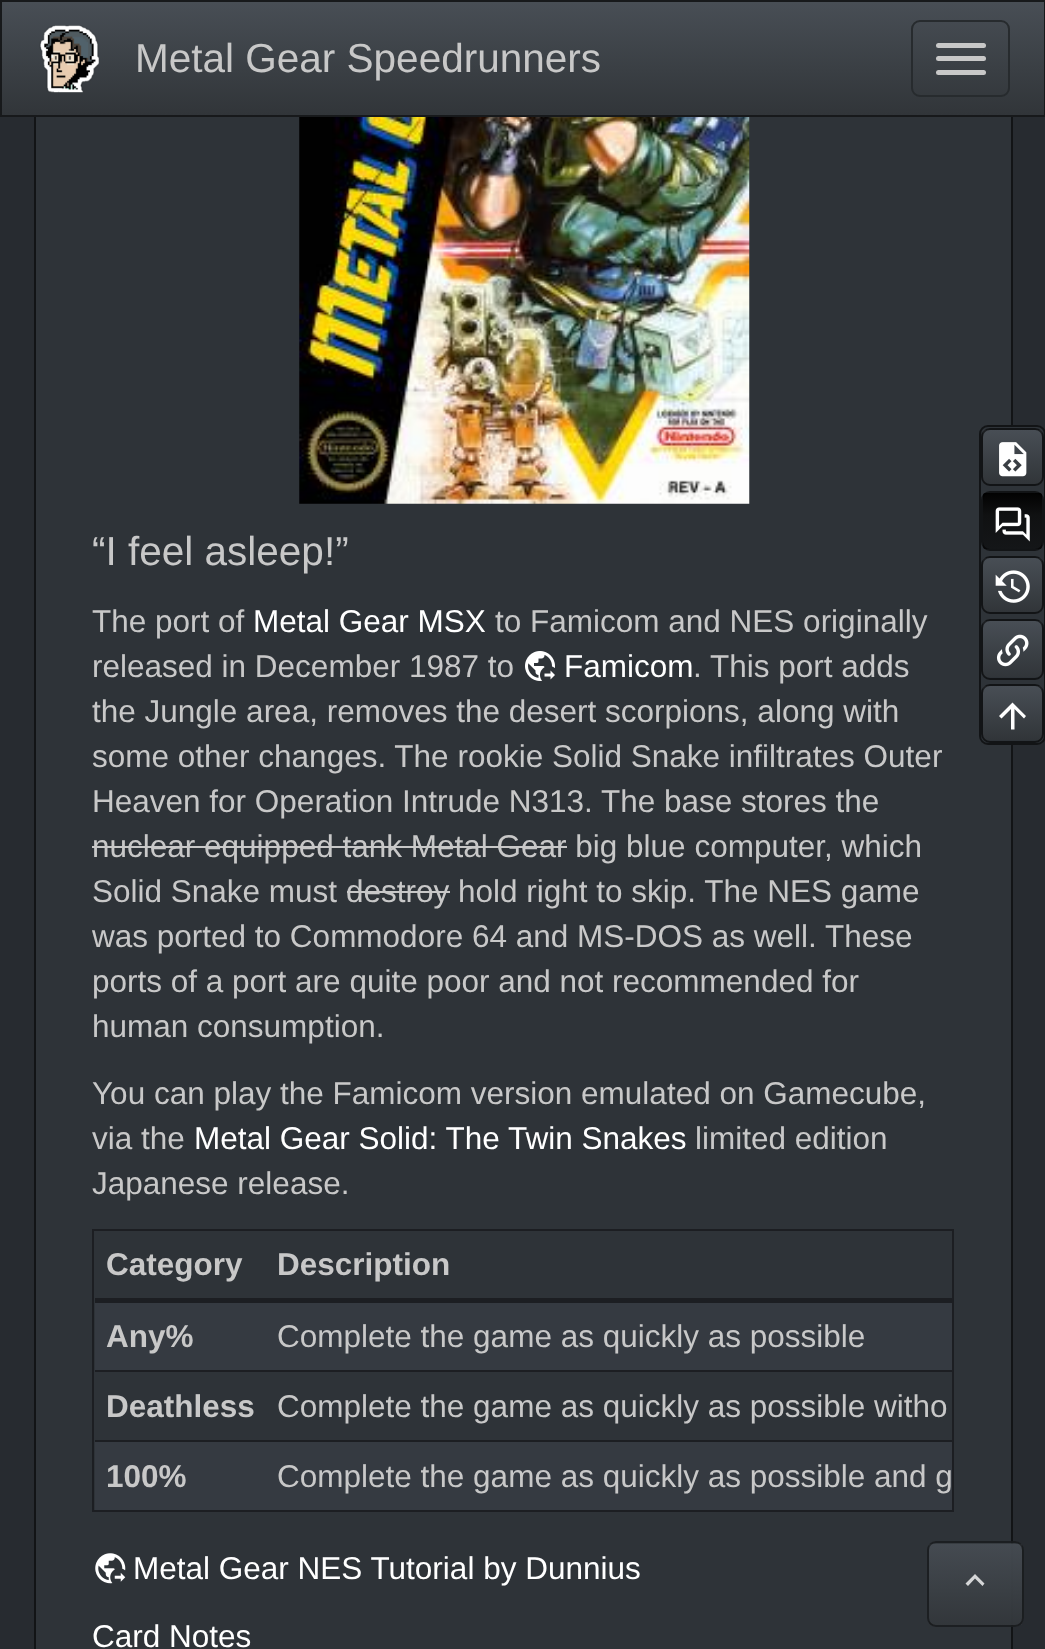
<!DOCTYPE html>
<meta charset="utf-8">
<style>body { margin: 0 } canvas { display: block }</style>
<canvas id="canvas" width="1045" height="1649"></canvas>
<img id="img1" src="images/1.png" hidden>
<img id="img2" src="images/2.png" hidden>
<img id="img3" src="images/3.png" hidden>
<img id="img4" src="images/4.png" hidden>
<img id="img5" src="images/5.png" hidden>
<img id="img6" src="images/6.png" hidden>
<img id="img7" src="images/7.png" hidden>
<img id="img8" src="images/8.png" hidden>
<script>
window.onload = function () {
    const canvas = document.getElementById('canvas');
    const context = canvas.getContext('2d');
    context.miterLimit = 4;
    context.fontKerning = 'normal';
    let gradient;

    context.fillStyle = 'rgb(39, 43, 48)';
    context.fillRect(0, 0, 1045, 1649);
    context.fillStyle = 'rgb(46, 51, 56)';
    context.fillRect(36, 117, 975, 1532);
    context.strokeStyle = 'rgb(18, 20, 22)';
    context.lineWidth = 2;
    context.strokeRect(35, -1, 977, 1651);
    gradient = context.createLinearGradient(523, 2.2, 523, 115);
    gradient.addColorStop(0, 'rgb(72, 78, 85)');
    gradient.addColorStop(0.6, 'rgb(58, 63, 68)');
    gradient.addColorStop(1, 'rgb(49, 53, 57)');
    context.fillStyle = gradient;
    context.fillRect(2, 2, 1042, 113);
    context.strokeStyle = 'rgb(23, 25, 27)';
    context.strokeRect(1, 1, 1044, 115);
    context.drawImage(document.getElementById('img1'), 39, 25, 60, 68);
    context.beginPath();
    context.roundRect(912, 21, 97, 75, 8);
    context.strokeStyle = 'rgb(39, 43, 46)';
    context.stroke();
    context.fillStyle = 'rgb(200, 200, 200)';
    context.beginPath();
    context.roundRect(936, 43, 50, 5, 2.5);
    context.fill();
    context.beginPath();
    context.roundRect(936, 56, 50, 5, 2.5);
    context.fill();
    context.beginPath();
    context.roundRect(936, 70, 50, 5, 2.5);
    context.fill();
    context.drawImage(document.getElementById('img2'), 299, 117, 451, 387);
    context.drawImage(document.getElementById('img3'), 525, 651, 30, 30);
    context.fillRect(92, 846, 475, 2);
    context.fillRect(347, 891, 103, 2);
    context.strokeStyle = 'rgb(28, 30, 34)';
    context.strokeRect(93, 1230, 860, 281);
    context.fillStyle = 'rgb(28, 30, 34)';
    context.fillRect(95, 1298, 857, 5);
    context.fillStyle = 'rgb(53, 58, 65)';
    context.fillRect(95, 1303, 857, 67);
    context.fillStyle = 'rgb(28, 30, 34)';
    context.fillRect(95, 1370, 857, 2);
    context.fillStyle = 'rgb(53, 58, 65)';
    context.fillRect(95, 1442, 857, 68);
    context.fillStyle = 'rgb(28, 30, 34)';
    context.fillRect(95, 1440, 857, 2);
    context.drawImage(document.getElementById('img4'), 95, 1553, 31, 31);
    context.fillStyle = 'rgb(46, 51, 56)';
    context.beginPath();
    context.roundRect(979, 425, 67, 320, 9);
    context.fill();
    context.beginPath();
    context.roundRect(980, 426, 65, 318, 8);
    context.strokeStyle = 'rgba(0, 0, 0, 0.6)';
    context.stroke();
    context.save();
    context.beginPath();
    context.roundRect(981, 428, 63, 58, 9);
    context.clip();
    gradient = context.createLinearGradient(1013, 430, 1013, 484);
    gradient.addColorStop(0, 'rgb(72, 78, 85)');
    gradient.addColorStop(0.6, 'rgb(58, 63, 68)');
    gradient.addColorStop(1, 'rgb(49, 53, 57)');
    context.fillStyle = gradient;
    context.fillRect(983, 430, 59, 54);
    context.restore();
    context.beginPath();
    context.roundRect(982, 429, 61, 56, 8);
    context.stroke();
    context.drawImage(document.getElementById('img5'), 999, 442, 28, 35);
    context.save();
    context.beginPath();
    context.roundRect(981, 491, 63, 60, 9);
    context.clip();
    gradient = context.createLinearGradient(1013, 493, 1013, 549);
    gradient.addColorStop(0, 'rgb(2, 2, 2)');
    gradient.addColorStop(0.4, 'rgb(16, 17, 18)');
    gradient.addColorStop(1, 'rgb(20, 22, 24)');
    context.fillStyle = gradient;
    context.fillRect(983, 493, 59, 56);
    context.restore();
    context.beginPath();
    context.roundRect(982, 492, 61, 58, 8);
    context.stroke();
    context.drawImage(document.getElementById('img6'), 995, 507, 35, 35);
    context.save();
    context.beginPath();
    context.roundRect(981, 556, 63, 58, 9);
    context.clip();
    gradient = context.createLinearGradient(1013, 558, 1013, 612);
    gradient.addColorStop(0, 'rgb(72, 78, 85)');
    gradient.addColorStop(0.6, 'rgb(58, 63, 68)');
    gradient.addColorStop(1, 'rgb(49, 53, 57)');
    context.fillStyle = gradient;
    context.fillRect(983, 558, 59, 54);
    context.restore();
    context.beginPath();
    context.roundRect(982, 557, 61, 56, 8);
    context.stroke();
    context.drawImage(document.getElementById('img7'), 995, 570, 35, 33);
    context.save();
    context.beginPath();
    context.roundRect(981, 619, 63, 61, 9);
    context.clip();
    gradient = context.createLinearGradient(1013, 621, 1013, 677);
    gradient.addColorStop(0, 'rgb(72, 78, 85)');
    gradient.addColorStop(0.6, 'rgb(58, 63, 68)');
    gradient.addColorStop(1, 'rgb(49, 53, 57)');
    context.fillStyle = gradient;
    context.fillRect(983, 621, 59, 56);
    context.restore();
    context.beginPath();
    context.roundRect(982, 620, 61, 59, 8);
    context.stroke();
    context.drawImage(document.getElementById('img8'), 996, 634, 33, 33);
    context.save();
    context.beginPath();
    context.roundRect(981, 684, 63, 59, 9);
    context.clip();
    gradient = context.createLinearGradient(1013, 686, 1013, 740);
    gradient.addColorStop(0, 'rgb(72, 78, 85)');
    gradient.addColorStop(0.6, 'rgb(58, 63, 68)');
    gradient.addColorStop(1, 'rgb(49, 53, 57)');
    context.fillStyle = gradient;
    context.fillRect(983, 686, 59, 54);
    context.restore();
    context.beginPath();
    context.roundRect(982, 685, 61, 57, 8);
    context.stroke();
    context.fillStyle = 'rgb(255, 255, 255)';
    context.beginPath();
    context.moveTo(1014.5, 729.5);
    context.lineTo(1011, 729.5);
    context.lineTo(1011, 709);
    context.lineTo(1001.5, 718.5);
    context.lineTo(999, 716);
    context.lineTo(1012.5, 702.5);
    context.lineTo(1026, 716);
    context.lineTo(1024, 718.5);
    context.lineTo(1014.5, 709);
    context.closePath();
    context.fill();
    context.fillStyle = 'rgba(58, 63, 68, 0.8)';
    context.beginPath();
    context.roundRect(927, 1541, 97, 86, 9);
    context.fill();
    gradient = context.createLinearGradient(975, 1544, 975, 1625);
    gradient.addColorStop(0, 'rgba(72, 78, 85, 0.8)');
    gradient.addColorStop(0.6, 'rgba(58, 63, 68, 0.8)');
    gradient.addColorStop(1, 'rgba(49, 53, 57, 0.8)');
    context.fillStyle = gradient;
    context.fillRect(929, 1544, 93, 81);
    context.beginPath();
    context.roundRect(928, 1542, 95, 84, 8);
    context.strokeStyle = 'rgba(0, 0, 0, 0.48)';
    context.stroke();
    context.fillStyle = 'rgb(213, 214, 215)';
    context.beginPath();
    context.moveTo(968, 1586);
    context.lineTo(975, 1578.5);
    context.lineTo(982.5, 1586);
    context.lineTo(984.5, 1583.5);
    context.lineTo(975, 1574);
    context.lineTo(965.5, 1583.5);
    context.closePath();
    context.fill();
    context.font = '40.5px Liberation Sans';
    context.fillStyle = 'rgb(200, 200, 200)';
    context.fillText('Metal Gear Speedrunners', 135, 72);
    context.fillText('“I feel asleep!”', 92, 565);
    context.font = '31.5px Liberation Sans';
    context.fillText('The port of', 92, 632);
    context.fillStyle = 'rgb(255, 255, 255)';
    context.fillText('Metal Gear MSX', 253, 632);
    context.fillStyle = 'rgb(200, 200, 200)';
    context.fillText('to Famicom and NES originally', 495, 632);
    context.fillText('released in December 1987 to', 92, 677);
    context.fillStyle = 'rgb(255, 255, 255)';
    context.fillText('Famicom', 564, 677);
    context.fillStyle = 'rgb(200, 200, 200)';
    context.fillText('. This port adds', 693, 677);
    context.fillText('the Jungle area, removes the desert scorpions, along with', 92, 722);
    context.fillText('some other changes. The rookie Solid Snake infiltrates Outer', 92, 767);
    context.fillText('Heaven for Operation Intrude N313. The base stores the', 92, 812);
    context.fillText('nuclear equipped tank Metal Gear big blue computer, which', 92, 857);
    context.fillText('Solid Snake must destroy hold right to skip. The NES game', 92, 902);
    context.fillText('was ported to Commodore 64 and MS-DOS as well. These', 92, 947);
    context.fillText('ports of a port are quite poor and not recommended for', 92, 992);
    context.fillText('human consumption.', 92, 1037);
    context.fillText('You can play the Famicom version emulated on Gamecube,', 92, 1104);
    context.fillText('via the', 92, 1149);
    context.fillStyle = 'rgb(255, 255, 255)';
    context.fillText('Metal Gear Solid: The Twin Snakes', 194, 1149);
    context.fillStyle = 'rgb(200, 200, 200)';
    context.fillText('limited edition', 695, 1149);
    context.fillText('Japanese release.', 92, 1194);
    context.font = 'bold 31.5px Liberation Sans';
    context.fillText('Category', 106, 1275);
    context.fillText('Description', 277, 1275);
    context.fillText('Any%', 106, 1347);
    context.font = '31.5px Liberation Sans';
    context.fillText('Complete the game as quickly as possible', 277, 1347);
    context.font = 'bold 31.5px Liberation Sans';
    context.fillText('Deathless', 106, 1417);
    context.font = '31.5px Liberation Sans';
    context.fillText('Complete the game as quickly as possible witho', 277, 1417);
    context.font = 'bold 31.5px Liberation Sans';
    context.fillText('100%', 106, 1487);
    context.font = '31.5px Liberation Sans';
    context.fillText('Complete the game as quickly as possible and g', 277, 1487);
    context.fillStyle = 'rgb(255, 255, 255)';
    context.fillText('Metal Gear NES Tutorial by Dunnius', 133, 1579);
    context.fillText('Card Notes', 92, 1647);
};
</script>
